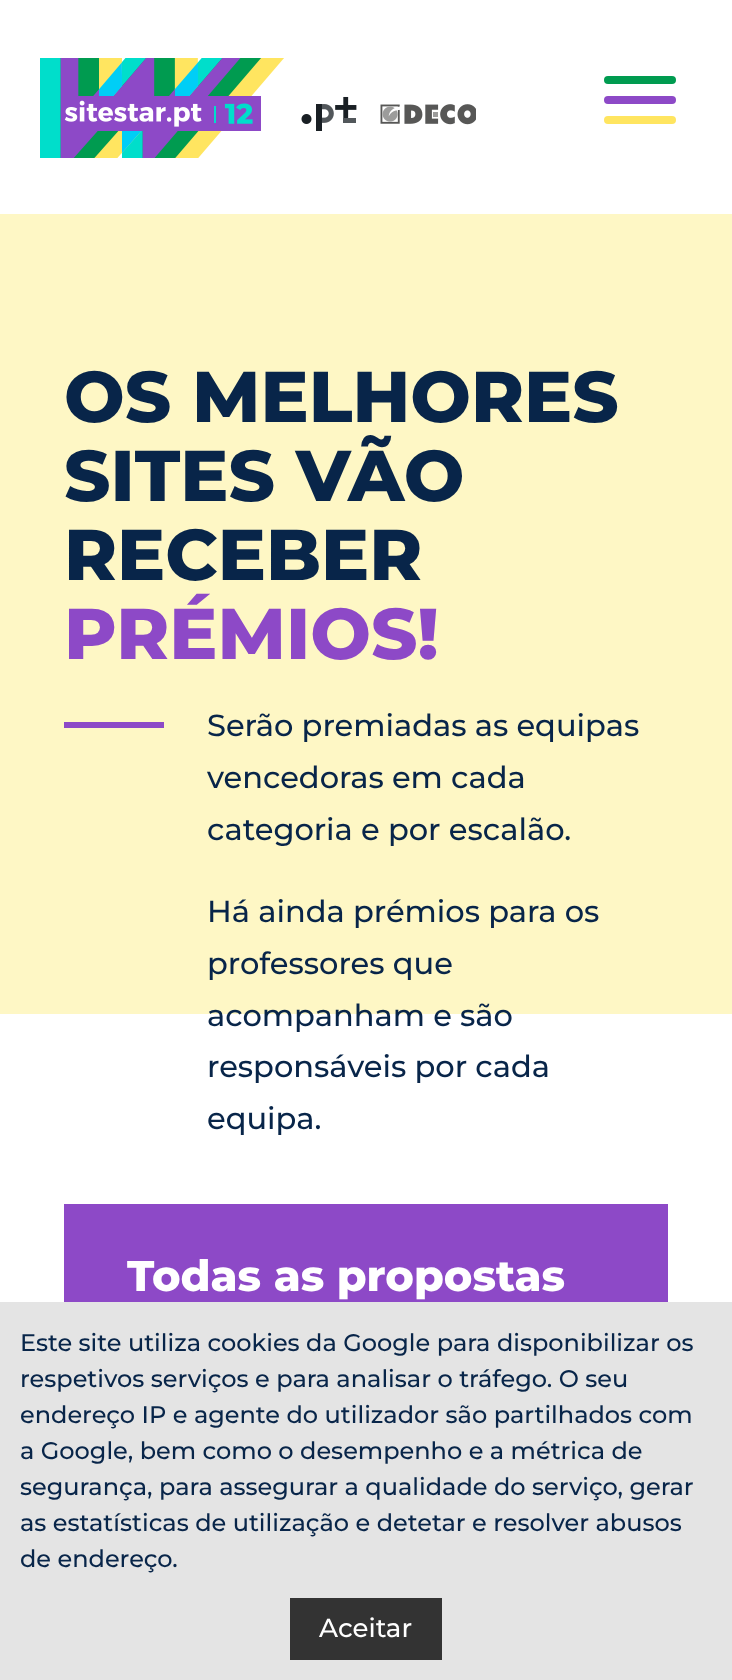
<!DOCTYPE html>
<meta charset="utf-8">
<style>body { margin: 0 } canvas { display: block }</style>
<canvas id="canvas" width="732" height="1680"></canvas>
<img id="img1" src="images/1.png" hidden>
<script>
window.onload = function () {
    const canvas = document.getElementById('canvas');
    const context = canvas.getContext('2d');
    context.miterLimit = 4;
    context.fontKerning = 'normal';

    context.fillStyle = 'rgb(255, 255, 255)';
    context.fillRect(0, 0, 732, 1680);
    context.drawImage(document.getElementById('img1'), 40, 58, 436, 100);
    context.fillStyle = 'rgb(141, 73, 199)';
    context.beginPath();
    context.roundRect(604, 96, 72, 8, 4);
    context.fill();
    context.fillStyle = 'rgb(0, 155, 80)';
    context.beginPath();
    context.roundRect(604, 76, 72, 8, 4);
    context.fill();
    context.fillStyle = 'rgb(255, 229, 96)';
    context.beginPath();
    context.roundRect(604, 116, 72, 8, 4);
    context.fill();
    context.fillStyle = 'rgb(254, 247, 197)';
    context.fillRect(0, 214, 732, 800);
    context.fillStyle = 'rgb(141, 73, 199)';
    context.fillRect(64, 722, 100, 6);
    context.fillRect(64, 1204, 604, 98);
    context.fillStyle = 'rgb(228, 228, 228)';
    context.fillRect(0, 1302, 732, 378);
    context.fillStyle = 'rgb(51, 51, 51)';
    context.fillRect(290, 1598, 152, 62);
    context.font = '800 71.75px Montserrat';
    context.fillStyle = 'rgb(8, 37, 73)';
    context.fillText('OS MELHORES', 64, 422);
    context.fillText('SITES VÃO', 64, 501);
    context.fillText('RECEBER', 64, 580);
    context.fillStyle = 'rgb(141, 73, 199)';
    context.fillText('PRÉMIOS!', 64, 659);
    context.font = '500 30.5px Montserrat';
    context.fillStyle = 'rgb(8, 37, 73)';
    context.fillText('Serão premiadas as equipas', 207, 736);
    context.fillText('vencedoras em cada', 207, 788);
    context.fillText('categoria e por escalão.', 207, 840);
    context.fillText('Há ainda prémios para os', 207, 922);
    context.fillText('professores que', 207, 974);
    context.fillText('acompanham e são', 207, 1026);
    context.fillText('responsáveis por cada', 207, 1077);
    context.fillText('equipa.', 207, 1129);
    context.font = '800 43px Montserrat';
    context.fillStyle = 'rgb(255, 255, 255)';
    context.fillText('Todas as propostas', 127, 1291);
    context.font = '500 24px Montserrat';
    context.fillStyle = 'rgb(8, 37, 73)';
    context.fillText('Este site utiliza cookies da Google para disponibilizar os', 20, 1351);
    context.fillText('respetivos serviços e para analisar o tráfego. O seu', 20, 1387);
    context.fillText('endereço IP e agente do utilizador são partilhados com', 20, 1423);
    context.fillText('a Google, bem como o desempenho e a métrica de', 20, 1459);
    context.fillText('segurança, para assegurar a qualidade do serviço, gerar', 20, 1495);
    context.fillText('as estatísticas de utilização e detetar e resolver abusos', 20, 1531);
    context.fillText('de endereço.', 20, 1567);
    context.font = '500 26px Montserrat';
    context.fillStyle = 'rgb(255, 255, 255)';
    context.fillText('Aceitar', 319, 1637);
};
</script>
